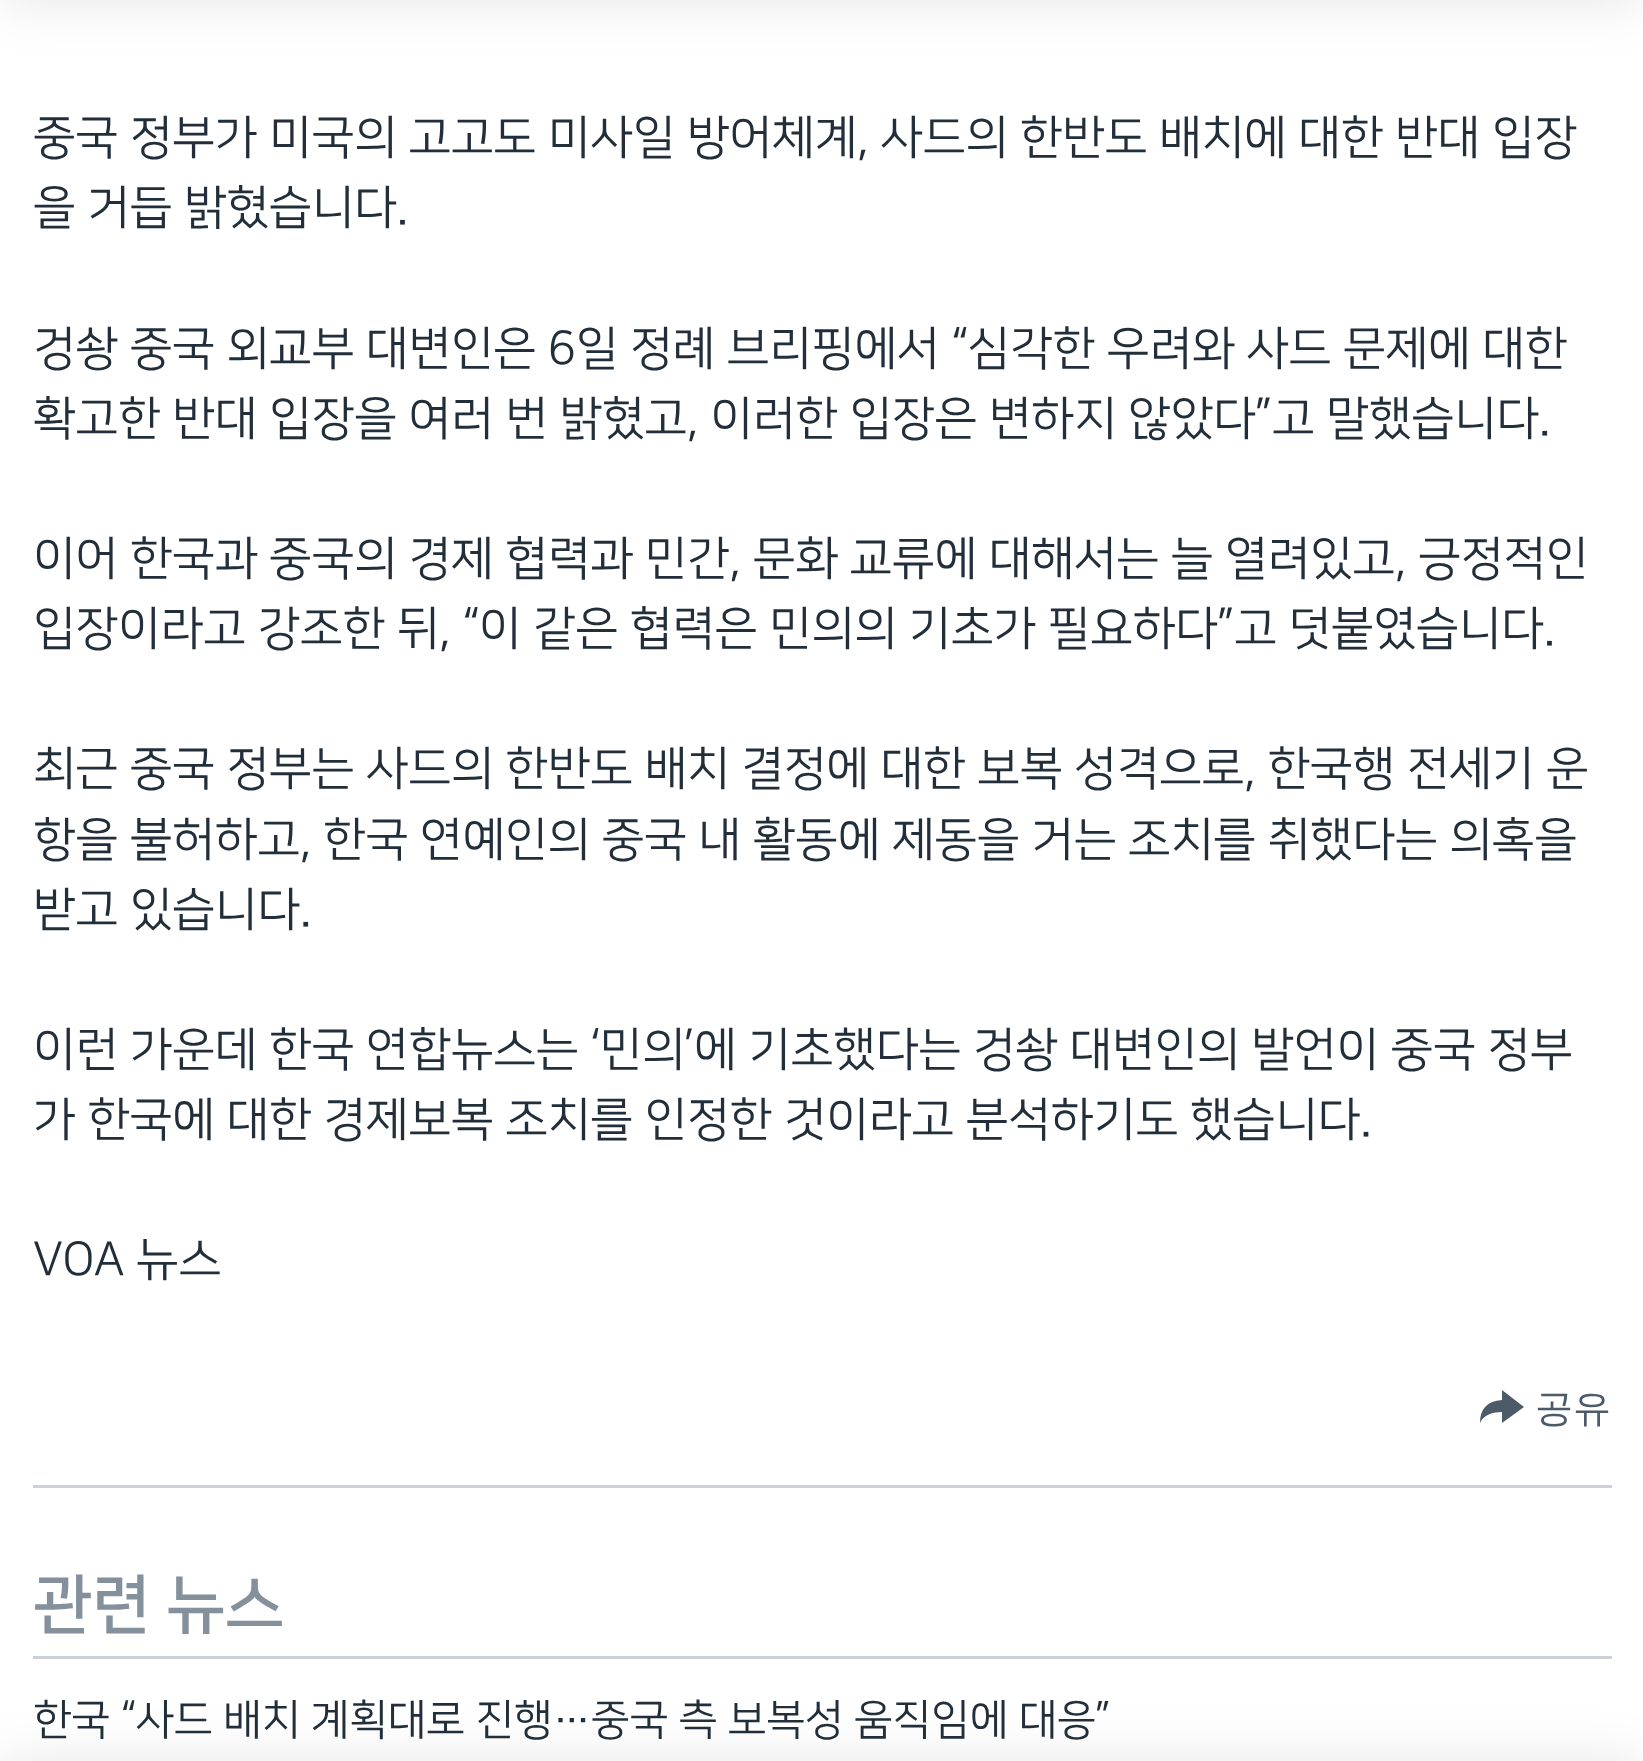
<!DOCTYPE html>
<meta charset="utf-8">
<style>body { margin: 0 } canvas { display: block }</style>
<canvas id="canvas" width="1643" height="1761"></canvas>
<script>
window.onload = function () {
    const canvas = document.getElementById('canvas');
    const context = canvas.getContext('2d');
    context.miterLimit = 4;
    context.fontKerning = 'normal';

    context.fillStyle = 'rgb(255, 255, 255)';
    context.fillRect(0, 0, 1643, 1761);
    context.fillStyle = 'rgba(0, 0, 0, 0.1)';
    context.filter = 'blur(27.5px)';
    context.beginPath();
    context.rect(0, -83, 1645, 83);
    context.fill();
    context.filter = 'none';
    context.filter = 'blur(27.5px)';
    context.beginPath();
    context.rect(0, 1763, 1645, 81);
    context.fill();
    context.filter = 'none';
    context.fillStyle = 'rgb(203, 209, 214)';
    context.fillRect(33, 1485, 1579, 3);
    context.fillStyle = 'rgb(77, 90, 103)';
    context.beginPath();
    context.moveTo(1480, 1423);
    context.bezierCurveTo(1480, 1409, 1487, 1401, 1502, 1400);
    context.lineTo(1502, 1390);
    context.lineTo(1524, 1407);
    context.lineTo(1502, 1423);
    context.lineTo(1502, 1412);
    context.bezierCurveTo(1493, 1412, 1483, 1415, 1480, 1423);
    context.closePath();
    context.fill();
    context.fillStyle = 'rgb(203, 209, 214)';
    context.fillRect(33, 1656, 1579, 3);
    context.font = '46.75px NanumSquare';
    context.fillStyle = 'rgb(34, 47, 58)';
    context.fillText('중국 정부가 미국의 고고도 미사일 방어체계, 사드의 한반도 배치에 대한 반대 입장', 33, 152);
    context.fillText('을 거듭 밝혔습니다.', 33, 222);
    context.fillText('겅솽 중국 외교부 대변인은 6일 정례 브리핑에서 “심각한 우려와 사드 문제에 대한', 33, 363);
    context.fillText('확고한 반대 입장을 여러 번 밝혔고, 이러한 입장은 변하지 않았다”고 말했습니다.', 33, 433);
    context.fillText('이어 한국과 중국의 경제 협력과 민간, 문화 교류에 대해서는 늘 열려있고, 긍정적인', 33, 573);
    context.fillText('입장이라고 강조한 뒤, “이 같은 협력은 민의의 기초가 필요하다”고 덧붙였습니다.', 33, 643);
    context.fillText('최근 중국 정부는 사드의 한반도 배치 결정에 대한 보복 성격으로, 한국행 전세기 운', 33, 783);
    context.fillText('항을 불허하고, 한국 연예인의 중국 내 활동에 제동을 거는 조치를 취했다는 의혹을', 33, 854);
    context.fillText('받고 있습니다.', 33, 924);
    context.fillText('이런 가운데 한국 연합뉴스는 ‘민의’에 기초했다는 겅솽 대변인의 발언이 중국 정부', 33, 1064);
    context.fillText('가 한국에 대한 경제보복 조치를 인정한 것이라고 분석하기도 했습니다.', 33, 1134);
    context.fillText('VOA 뉴스', 33, 1274);
    context.font = '500 38px WenQuanYi Zen Hei';
    context.fillStyle = 'rgb(77, 90, 103)';
    context.fillText('공유', 1535, 1421);
    context.font = 'bold 64.5px NanumSquare';
    context.fillStyle = 'rgb(132, 145, 157)';
    context.fillText('관련 뉴스', 33, 1625);
    context.font = '42.35px NanumSquare';
    context.fillStyle = 'rgb(34, 47, 58)';
    context.fillText('한국 “사드 배치 계획대로 진행…중국 측 보복성 움직임에 대응”', 33, 1733);
};
</script>
